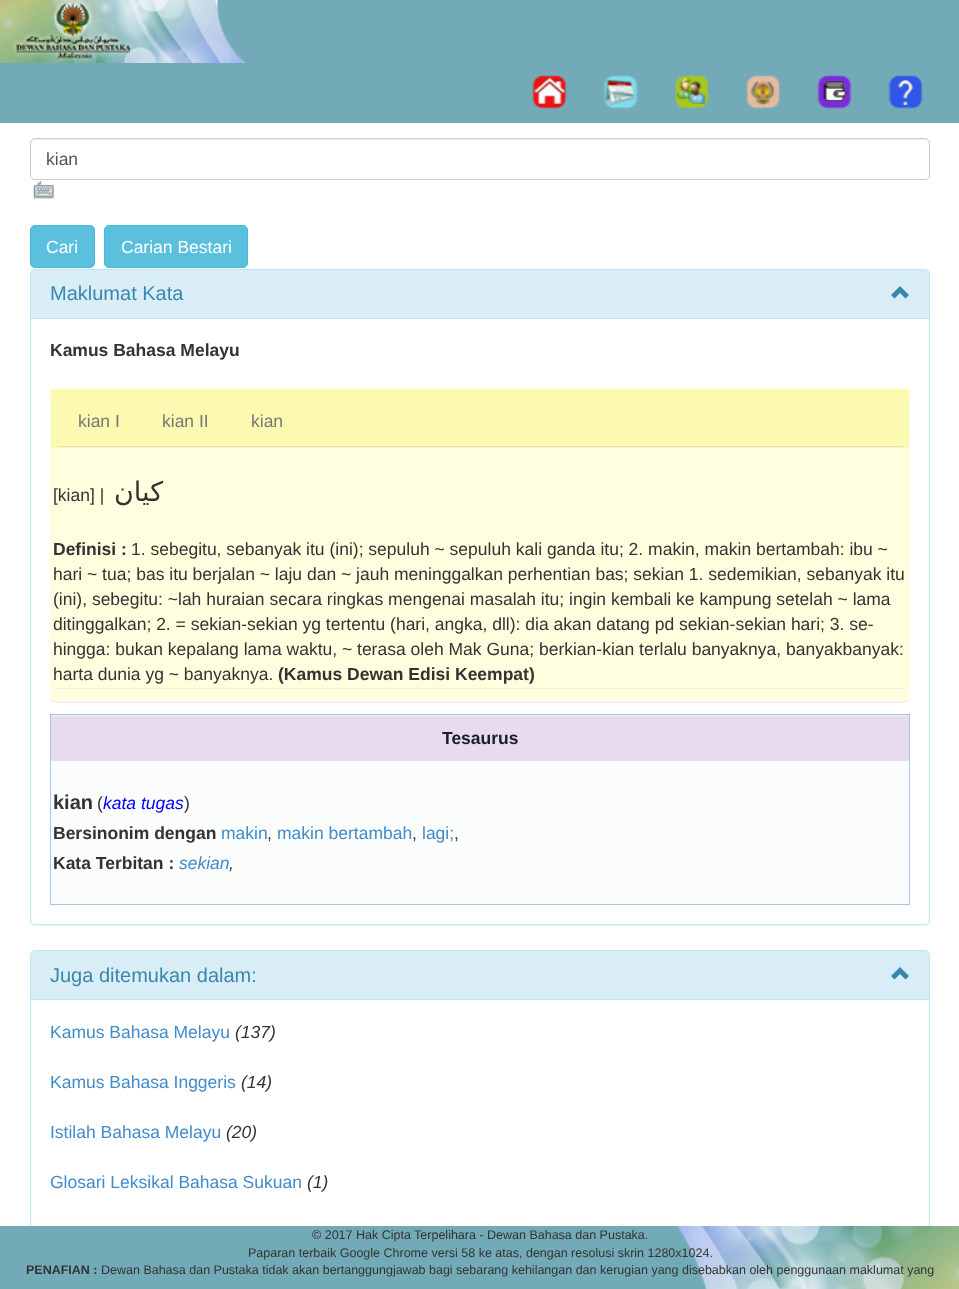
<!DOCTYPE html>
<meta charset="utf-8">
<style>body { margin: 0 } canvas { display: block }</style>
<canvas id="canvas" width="959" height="1289"></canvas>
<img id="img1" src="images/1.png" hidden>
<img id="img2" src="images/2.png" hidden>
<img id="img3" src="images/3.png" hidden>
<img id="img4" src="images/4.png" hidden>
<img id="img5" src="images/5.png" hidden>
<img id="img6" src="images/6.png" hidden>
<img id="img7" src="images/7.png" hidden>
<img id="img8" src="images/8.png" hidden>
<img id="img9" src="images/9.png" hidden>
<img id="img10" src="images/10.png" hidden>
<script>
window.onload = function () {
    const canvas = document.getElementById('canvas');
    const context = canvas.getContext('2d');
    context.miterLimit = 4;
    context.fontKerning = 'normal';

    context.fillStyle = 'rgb(255, 255, 255)';
    context.fillRect(0, 0, 959, 1289);
    context.fillStyle = 'rgb(115, 170, 183)';
    context.fillRect(0, 0, 959, 123);
    context.drawImage(document.getElementById('img1'), 0, 0, 245, 63);
    context.drawImage(document.getElementById('img2'), 532, 75, 35, 34);
    context.drawImage(document.getElementById('img3'), 603, 75, 35, 34);
    context.drawImage(document.getElementById('img4'), 674, 75, 36, 34);
    context.drawImage(document.getElementById('img5'), 746, 75, 35, 34);
    context.drawImage(document.getElementById('img6'), 817, 75, 35, 34);
    context.drawImage(document.getElementById('img7'), 888, 75, 35, 34);
    context.fillStyle = 'rgb(236, 236, 236)';
    context.beginPath();
    context.moveTo(35, 140);
    context.lineTo(925, 140);
    context.bezierCurveTo(927, 140, 929, 142, 929, 144);
    context.bezierCurveTo(929, 141, 928, 139, 925, 139);
    context.lineTo(35, 139);
    context.bezierCurveTo(32, 139, 31, 141, 31, 144);
    context.bezierCurveTo(31, 142, 33, 140, 35, 140);
    context.closePath();
    context.fill();
    context.beginPath();
    context.roundRect(30.5, 138.5, 899, 41, 4.5);
    context.strokeStyle = 'rgb(204, 204, 204)';
    context.stroke();
    context.drawImage(document.getElementById('img8'), 33, 181, 21, 18);
    context.fillStyle = 'rgb(91, 192, 222)';
    context.beginPath();
    context.roundRect(30.5, 225.5, 64, 42, 4.5);
    context.fill();
    context.strokeStyle = 'rgb(70, 184, 218)';
    context.stroke();
    context.beginPath();
    context.roundRect(104.5, 225.5, 143, 42, 4.5);
    context.fill();
    context.stroke();
    context.fillStyle = 'rgba(0, 0, 0, 0.05)';
    context.filter = 'blur(0.5px)';
    context.beginPath();
    context.roundRect(30, 270, 900, 656, 5);
    context.fill();
    context.filter = 'none';
    context.fillStyle = 'rgb(255, 255, 255)';
    context.beginPath();
    context.roundRect(30.5, 269.5, 899, 655, 4.5);
    context.fill();
    context.strokeStyle = 'rgb(188, 232, 241)';
    context.stroke();
    context.fillStyle = 'rgb(217, 237, 247)';
    context.beginPath();
    context.roundRect(31, 270, 898, 49, [4, 4, 0, 0]);
    context.fill();
    context.fillStyle = 'rgb(188, 232, 241)';
    context.fillRect(31, 318, 898, 1);
    context.fillStyle = 'rgb(58, 135, 173)';
    context.beginPath();
    context.moveTo(905.5, 298.5);
    context.lineTo(909, 295);
    context.lineTo(900, 286);
    context.lineTo(891, 295);
    context.lineTo(894.5, 298.5);
    context.lineTo(900, 293);
    context.closePath();
    context.fill();
    context.fillStyle = 'rgba(0, 0, 0, 0.05)';
    context.filter = 'blur(0.5px)';
    context.beginPath();
    context.roundRect(50, 389, 860, 314, 5);
    context.fill();
    context.filter = 'none';
    context.fillStyle = 'rgb(255, 255, 224)';
    context.beginPath();
    context.roundRect(50, 388, 860, 313, 5);
    context.fill();
    context.fillStyle = 'rgb(252, 249, 176)';
    context.fillRect(51, 389, 858, 59);
    context.fillStyle = 'rgb(221, 221, 221)';
    context.fillRect(58, 446, 845, 1);
    context.fillStyle = 'rgba(0, 0, 0, 0.05)';
    context.filter = 'blur(0.5px)';
    context.beginPath();
    context.roundRect(51, 449, 858, 240, 5);
    context.fill();
    context.filter = 'none';
    context.fillStyle = 'rgb(255, 255, 224)';
    context.beginPath();
    context.roundRect(51, 448, 858, 240, 5);
    context.fill();
    context.fillStyle = 'rgb(166, 201, 226)';
    context.fillRect(50, 714, 860, 1);
    context.fillStyle = 'rgb(251, 252, 252)';
    context.fillRect(51, 846, 859, 3);
    context.fillStyle = 'rgb(166, 201, 226)';
    context.fillRect(909, 714, 1, 191);
    context.fillRect(50, 904, 860, 1);
    context.fillRect(50, 714, 1, 191);
    context.fillStyle = 'rgb(232, 218, 239)';
    context.fillRect(51, 715, 858, 46);
    context.drawImage(document.getElementById('img9'), 51, 715, 858, 2);
    context.fillStyle = 'rgb(251, 252, 252)';
    context.fillRect(51, 761, 858, 85);
    context.fillRect(51, 849, 858, 55);
    context.beginPath();
    context.roundRect(30.5, 950.5, 899, 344, 4.5);
    context.stroke();
    context.fillStyle = 'rgb(217, 237, 247)';
    context.beginPath();
    context.roundRect(31, 951, 898, 49, [4, 4, 0, 0]);
    context.fill();
    context.fillStyle = 'rgb(188, 232, 241)';
    context.fillRect(31, 999, 898, 1);
    context.fillStyle = 'rgb(58, 135, 173)';
    context.beginPath();
    context.moveTo(905.5, 979.5);
    context.lineTo(909, 976);
    context.lineTo(900, 967);
    context.lineTo(891, 976);
    context.lineTo(894.5, 979.5);
    context.lineTo(900, 974);
    context.closePath();
    context.fill();
    context.fillStyle = 'rgb(115, 170, 183)';
    context.fillRect(0, 1226, 707, 63);
    context.drawImage(document.getElementById('img10'), 677, 1226, 282, 63);
    context.font = '17.5px Liberation Sans';
    context.fillStyle = 'rgb(85, 85, 85)';
    context.fillText('kian', 46, 165);
    context.fillStyle = 'rgb(255, 255, 255)';
    context.fillText('Cari', 46, 253);
    context.fillText('Carian Bestari', 121, 253);
    context.font = '20px Liberation Sans';
    context.fillStyle = 'rgb(58, 135, 173)';
    context.fillText('Maklumat Kata', 50, 300);
    context.font = 'bold 17.5px Liberation Sans';
    context.fillStyle = 'rgb(51, 51, 51)';
    context.fillText('Kamus Bahasa Melayu', 50, 356);
    context.font = '17.5px Liberation Sans';
    context.fillStyle = 'rgb(119, 119, 119)';
    context.fillText('kian I', 78, 427);
    context.fillText('kian II', 162, 427);
    context.fillText('kian', 251, 427);
    context.fillStyle = 'rgb(51, 51, 51)';
    context.fillText('[kian] |', 53, 501);
    context.direction = 'rtl';
    context.font = '27px DejaVu Sans';
    context.fillText('کيان', 163, 501);
    context.direction = 'ltr';
    context.font = 'bold 17.5px Liberation Sans';
    context.fillText('Definisi :', 53, 555);
    context.font = '17.5px Liberation Sans';
    context.fillText('1. sebegitu, sebanyak itu (ini); sepuluh ~ sepuluh kali ganda itu; 2. makin, makin bertambah: ibu ~', 131, 555);
    context.fillText('hari ~ tua; bas itu berjalan ~ laju dan ~ jauh meninggalkan perhentian bas; sekian 1. sedemikian, sebanyak itu', 53, 580);
    context.fillText('(ini), sebegitu: ~lah huraian secara ringkas mengenai masalah itu; ingin kembali ke kampung setelah ~ lama', 53, 605);
    context.fillText('ditinggalkan; 2. = sekian-sekian yg tertentu (hari, angka, dll): dia akan datang pd sekian-sekian hari; 3. se-', 53, 630);
    context.fillText('hingga: bukan kepalang lama waktu, ~ terasa oleh Mak Guna; berkian-kian terlalu banyaknya, banyakbanyak:', 53, 655);
    context.fillText('harta dunia yg ~ banyaknya.', 53, 680);
    context.font = 'bold 17.5px Liberation Sans';
    context.fillText('(Kamus Dewan Edisi Keempat)', 278, 680);
    context.fillStyle = 'rgb(23, 32, 42)';
    context.fillText('Tesaurus', 442, 744);
    context.font = 'bold 20px Liberation Sans';
    context.fillStyle = 'rgb(51, 51, 51)';
    context.fillText('kian', 53, 809);
    context.font = '17.5px Liberation Sans';
    context.fillText('(', 97, 809);
    context.font = 'italic 17.5px Liberation Sans';
    context.fillStyle = 'rgb(0, 0, 255)';
    context.fillText('kata tugas', 103, 809);
    context.font = '17.5px Liberation Sans';
    context.fillStyle = 'rgb(51, 51, 51)';
    context.fillText(')', 184, 809);
    context.font = 'bold 17.5px Liberation Sans';
    context.fillText('Bersinonim dengan', 53, 839);
    context.font = '17.5px Liberation Sans';
    context.fillStyle = 'rgb(66, 139, 202)';
    context.fillText('makin', 221, 839);
    context.fillStyle = 'rgb(51, 51, 51)';
    context.fillText(',', 267, 839);
    context.fillStyle = 'rgb(66, 139, 202)';
    context.fillText('makin bertambah', 277, 839);
    context.fillStyle = 'rgb(51, 51, 51)';
    context.fillText(',', 412, 839);
    context.fillStyle = 'rgb(66, 139, 202)';
    context.fillText('lagi;', 422, 839);
    context.fillStyle = 'rgb(51, 51, 51)';
    context.fillText(',', 454, 839);
    context.font = 'bold 17.5px Liberation Sans';
    context.fillText('Kata Terbitan :', 53, 869);
    context.font = 'italic 17.5px Liberation Sans';
    context.fillStyle = 'rgb(66, 139, 202)';
    context.fillText('sekian', 179, 869);
    context.fillStyle = 'rgb(51, 51, 51)';
    context.fillText(',', 229, 869);
    context.font = '20px Liberation Sans';
    context.fillStyle = 'rgb(58, 135, 173)';
    context.fillText('Juga ditemukan dalam:', 50, 982);
    context.font = '17.5px Liberation Sans';
    context.fillStyle = 'rgb(66, 139, 202)';
    context.fillText('Kamus Bahasa Melayu', 50, 1038);
    context.font = 'italic 17.5px Liberation Sans';
    context.fillStyle = 'rgb(51, 51, 51)';
    context.fillText('(137)', 235, 1038);
    context.font = '17.5px Liberation Sans';
    context.fillStyle = 'rgb(66, 139, 202)';
    context.fillText('Kamus Bahasa Inggeris', 50, 1088);
    context.font = 'italic 17.5px Liberation Sans';
    context.fillStyle = 'rgb(51, 51, 51)';
    context.fillText('(14)', 241, 1088);
    context.font = '17.5px Liberation Sans';
    context.fillStyle = 'rgb(66, 139, 202)';
    context.fillText('Istilah Bahasa Melayu', 50, 1138);
    context.font = 'italic 17.5px Liberation Sans';
    context.fillStyle = 'rgb(51, 51, 51)';
    context.fillText('(20)', 226, 1138);
    context.font = '17.5px Liberation Sans';
    context.fillStyle = 'rgb(66, 139, 202)';
    context.fillText('Glosari Leksikal Bahasa Sukuan', 50, 1188);
    context.font = 'italic 17.5px Liberation Sans';
    context.fillStyle = 'rgb(51, 51, 51)';
    context.fillText('(1)', 307, 1188);
    context.font = '12.5px Liberation Sans';
    context.fillText('© 2017 Hak Cipta Terpelihara - Dewan Bahasa dan Pustaka.', 312, 1239);
    context.fillText('Paparan terbaik Google Chrome versi 58 ke atas, dengan resolusi skrin 1280x1024.', 248, 1257);
    context.font = 'bold 12.5px Liberation Sans';
    context.fillText('PENAFIAN :', 26, 1274);
    context.font = '12.5px Liberation Sans';
    context.fillText('Dewan Bahasa dan Pustaka tidak akan bertanggungjawab bagi sebarang kehilangan dan kerugian yang disebabkan oleh penggunaan maklumat yang', 101, 1274);
};
</script>
